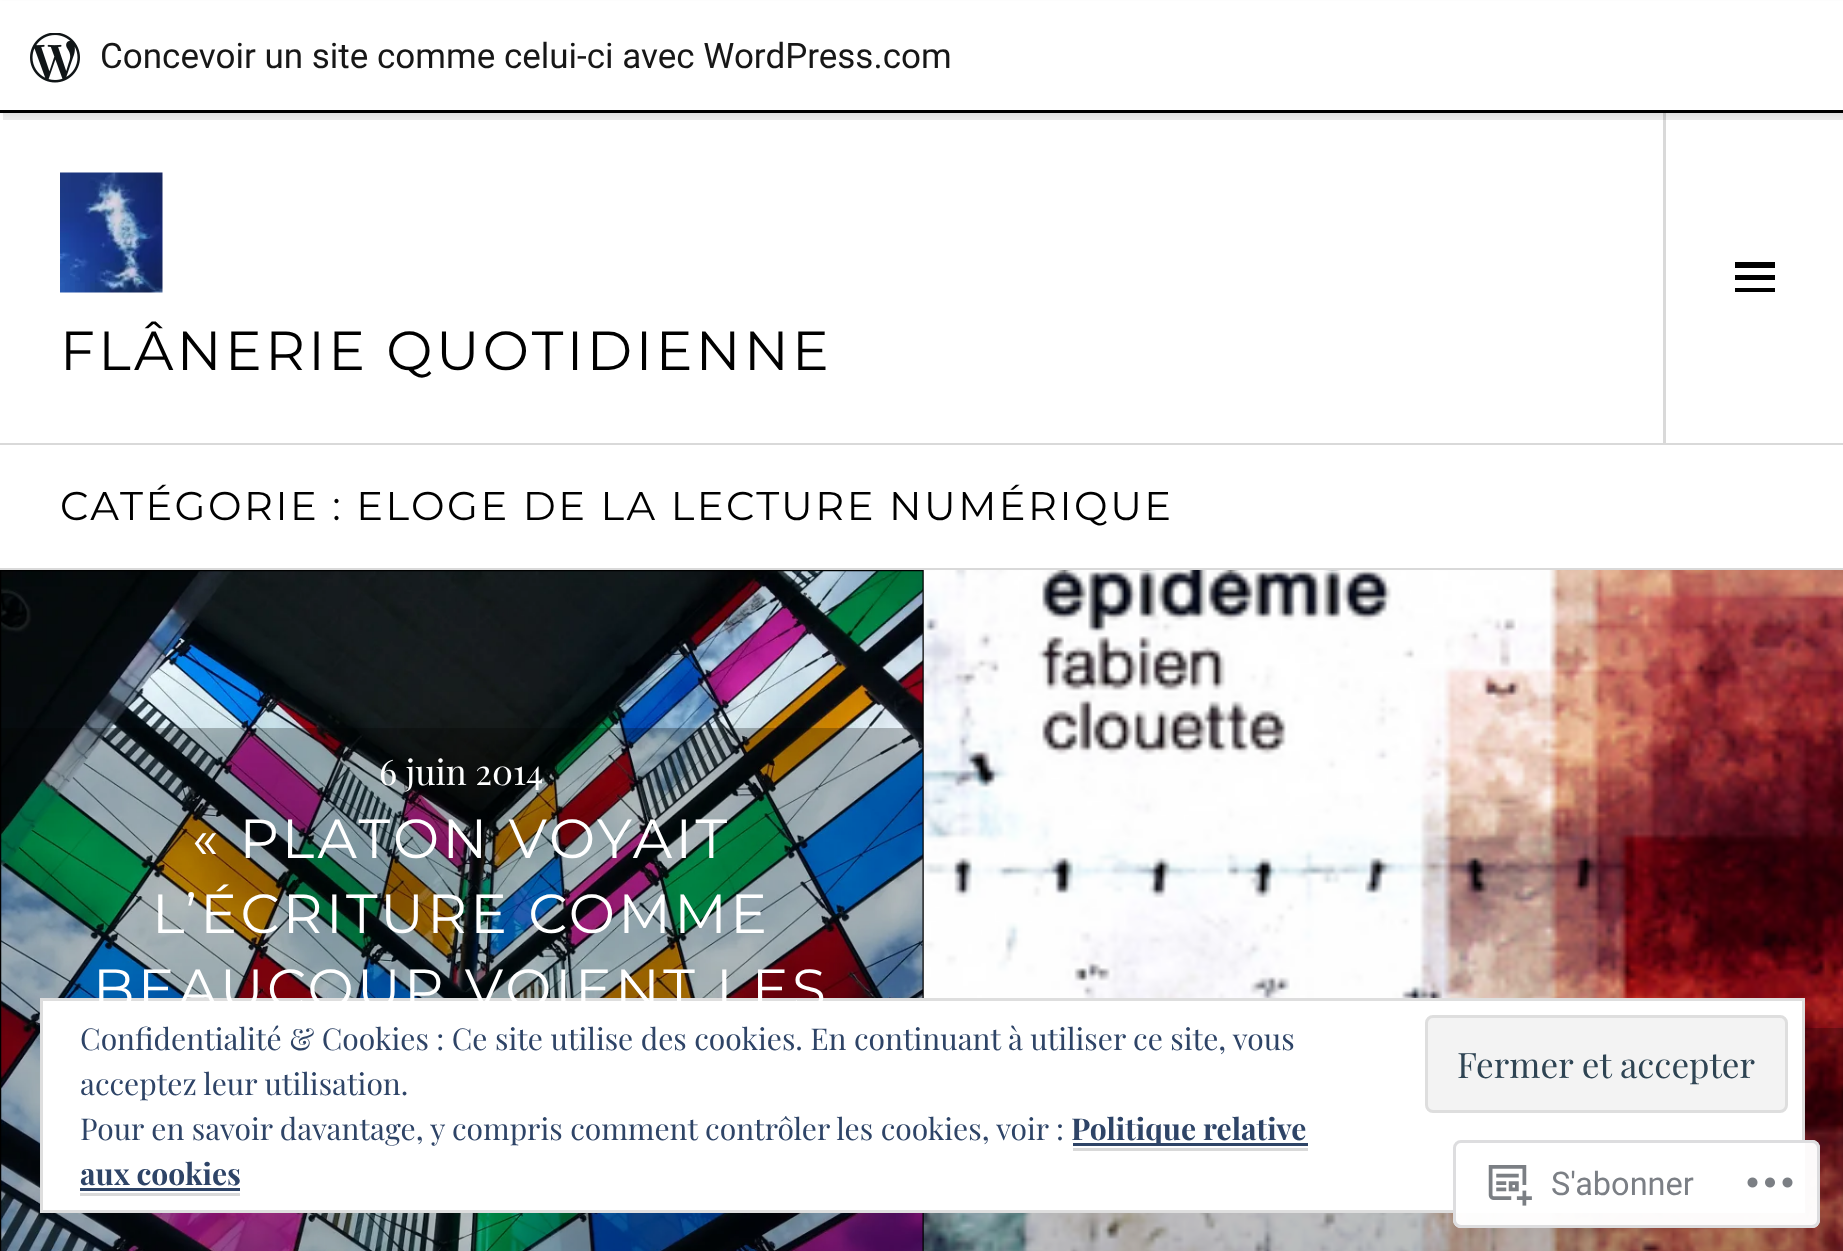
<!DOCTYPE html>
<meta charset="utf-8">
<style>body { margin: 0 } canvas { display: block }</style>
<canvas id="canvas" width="1843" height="1251"></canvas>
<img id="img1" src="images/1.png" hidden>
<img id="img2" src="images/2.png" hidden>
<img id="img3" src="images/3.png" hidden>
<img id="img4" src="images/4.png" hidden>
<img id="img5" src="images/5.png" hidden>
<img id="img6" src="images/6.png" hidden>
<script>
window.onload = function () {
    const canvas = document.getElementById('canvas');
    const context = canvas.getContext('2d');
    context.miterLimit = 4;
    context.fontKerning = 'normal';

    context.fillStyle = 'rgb(255, 255, 255)';
    context.fillRect(0, 0, 1843, 1251);
    context.fillStyle = 'rgb(217, 217, 217)';
    context.fillRect(1663, 113, 3, 330);
    context.fillStyle = 'rgba(0, 0, 0, 0.05)';
    context.filter = 'blur(2.5px)';
    context.beginPath();
    context.rect(0, 3, 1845, 112);
    context.fill();
    context.filter = 'none';
    context.fillStyle = 'rgba(0, 0, 0, 0.08)';
    context.beginPath();
    context.moveTo(3, 112);
    context.lineTo(3, 120);
    context.lineTo(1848, 120);
    context.lineTo(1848, 8);
    context.lineTo(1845, 8);
    context.lineTo(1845, 112);
    context.closePath();
    context.fill();
    context.fillStyle = 'rgb(255, 255, 255)';
    context.fillRect(0, 1, 1843, 109);
    context.drawImage(document.getElementById('img1'), 30, 33, 50, 50);
    context.fillStyle = 'rgb(0, 0, 0)';
    context.fillRect(0, 110, 1843, 3);
    context.fillStyle = 'rgb(217, 217, 217)';
    context.fillRect(0, 443, 1843, 2);
    context.drawImage(document.getElementById('img2'), 60, 172, 103, 121);
    context.fillStyle = 'rgb(0, 0, 0)';
    context.beginPath();
    context.moveTo(1735, 292);
    context.lineTo(1735, 288);
    context.lineTo(1775, 288);
    context.lineTo(1775, 292);
    context.closePath();
    context.moveTo(1735, 262);
    context.lineTo(1775, 262);
    context.lineTo(1775, 268);
    context.lineTo(1735, 268);
    context.closePath();
    context.moveTo(1735, 280);
    context.lineTo(1735, 275);
    context.lineTo(1775, 275);
    context.lineTo(1775, 280);
    context.closePath();
    context.fill();
    context.fillStyle = 'rgb(217, 217, 217)';
    context.fillRect(0, 568, 1843, 2);
    context.fillStyle = 'rgb(0, 0, 0)';
    context.fillRect(0, 570, 924, 681);
    context.drawImage(document.getElementById('img3'), 1, 571, 922, 680);
    context.fillStyle = 'rgba(0, 0, 0, 0.25)';
    context.fillRect(1, 728, 922, 523);
    context.drawImage(document.getElementById('img4'), 923, 570, 920, 681);
    context.fillRect(923, 1028, 920, 223);
    context.fillStyle = 'rgb(255, 255, 255)';
    context.beginPath();
    context.rect(41.5, 999.5, 1762, 212);
    context.fill();
    context.strokeStyle = 'rgb(222, 222, 222)';
    context.lineWidth = 3;
    context.stroke();
    context.fillStyle = 'rgb(243, 243, 243)';
    context.beginPath();
    context.roundRect(1426.5, 1016.5, 360, 95, 6.5);
    context.fill();
    context.stroke();
    context.fillStyle = 'rgb(217, 217, 217)';
    context.fillRect(1073, 1148, 235, 3);
    context.fillStyle = 'rgb(46, 68, 103)';
    context.fillRect(1073, 1143, 235, 3);
    context.fillStyle = 'rgb(217, 217, 217)';
    context.fillRect(80, 1193, 160, 3);
    context.fillStyle = 'rgb(46, 68, 103)';
    context.fillRect(80, 1188, 160, 3);
    context.fillStyle = 'rgba(255, 255, 255, 0.98)';
    context.beginPath();
    context.roundRect(1453, 1140, 367, 88, 8);
    context.fill();
    context.beginPath();
    context.roundRect(1454.5, 1141.5, 364, 85, 6.5);
    context.strokeStyle = 'rgba(220, 220, 222, 0.98)';
    context.stroke();
    context.drawImage(document.getElementById('img5'), 1488, 1165, 44, 41);
    context.drawImage(document.getElementById('img6'), 1747, 1177, 46, 11);
    context.font = '35px Roboto';
    context.fillStyle = 'rgb(23, 23, 23)';
    context.fillText('Concevoir un site comme celui-ci avec WordPress.com', 100, 68);
    context.letterSpacing = '3.4px';
    context.font = '55px Montserrat';
    context.fillStyle = 'rgb(0, 0, 0)';
    context.fillText('FLÂNERIE QUOTIDIENNE', 60, 370);
    context.letterSpacing = '2.5px';
    context.font = '40px Montserrat';
    context.fillText('CATÉGORIE : ELOGE DE LA LECTURE NUMÉRIQUE', 60, 520);
    context.letterSpacing = '0px';
    context.font = '35px Playfair Display';
    context.fillStyle = 'rgb(255, 255, 255)';
    context.fillText('6 juin 2014', 379, 785);
    context.letterSpacing = '3.4px';
    context.font = '55px Montserrat';
    context.fillText('« PLATON VOYAIT', 192, 858);
    context.fillText('L’ÉCRITURE COMME', 152, 933);
    context.fillText('BEAUCOUP VOIENT LES', 93, 1008);
    context.letterSpacing = '0px';
    context.font = '30px Playfair Display';
    context.fillStyle = 'rgb(46, 68, 103)';
    context.fillText('Confidentialité & Cookies : Ce site utilise des cookies. En continuant à utiliser ce site, vous', 80, 1050);
    context.fillText('acceptez leur utilisation.', 80, 1095);
    context.font = '35px Playfair Display';
    context.fillStyle = 'rgb(46, 68, 83)';
    context.fillText('Fermer et accepter', 1457, 1078);
    context.font = '30px Playfair Display';
    context.fillStyle = 'rgb(46, 68, 103)';
    context.fillText('Pour en savoir davantage, y compris comment contrôler les cookies, voir :', 80, 1140);
    context.font = 'bold 30px Playfair Display';
    context.fillText('Politique relative', 1071, 1140);
    context.fillText('aux cookies', 80, 1185);
    context.font = '32.5px Roboto';
    context.fillStyle = 'rgb(123, 127, 133)';
    context.fillText('S\'abonner', 1551, 1195);
};
</script>
